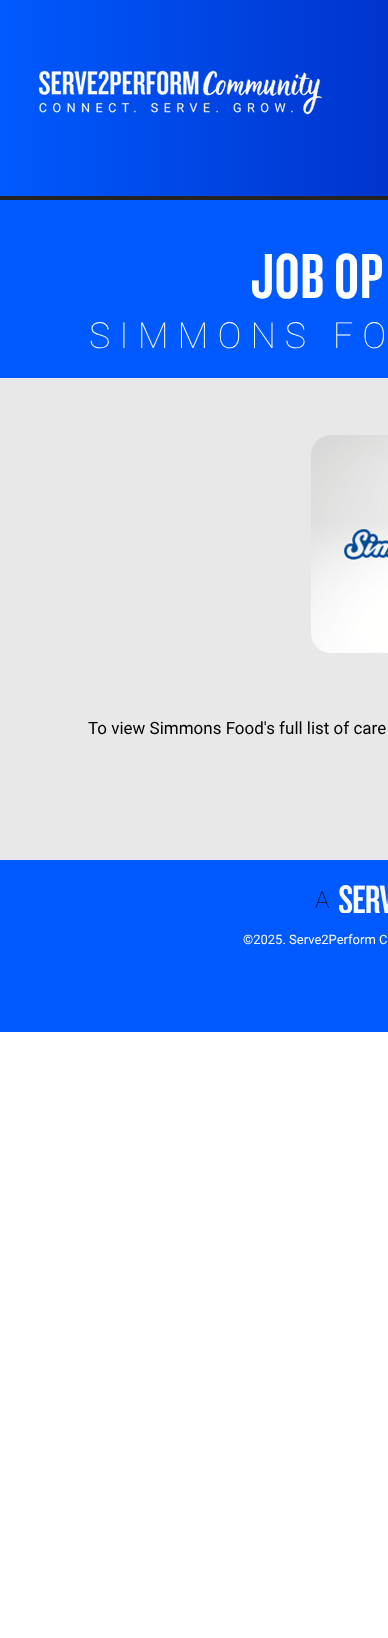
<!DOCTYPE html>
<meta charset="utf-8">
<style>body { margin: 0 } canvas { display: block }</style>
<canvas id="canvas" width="388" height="1638"></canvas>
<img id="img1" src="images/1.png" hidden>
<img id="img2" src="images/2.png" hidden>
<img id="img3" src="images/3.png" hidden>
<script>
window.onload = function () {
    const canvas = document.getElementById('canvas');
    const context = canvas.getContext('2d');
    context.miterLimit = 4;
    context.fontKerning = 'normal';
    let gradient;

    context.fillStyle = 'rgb(255, 255, 255)';
    context.fillRect(0, 0, 388, 1638);
    gradient = context.createLinearGradient(0, 98, 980, 98);
    gradient.addColorStop(0, 'rgb(0, 90, 255)');
    gradient.addColorStop(0.67, 'rgb(0, 25, 170)');
    gradient.addColorStop(1, 'rgb(0, 25, 170)');
    context.fillStyle = gradient;
    context.fillRect(0, 0, 388, 196);
    context.drawImage(document.getElementById('img1'), 38, 70, 284, 45);
    context.fillStyle = 'rgb(35, 35, 35)';
    context.fillRect(0, 196, 388, 4);
    context.fillStyle = 'rgb(0, 90, 255)';
    context.fillRect(0, 200, 388, 178);
    context.fillStyle = 'rgb(232, 232, 232)';
    context.fillRect(0, 378, 388, 482);
    context.drawImage(document.getElementById('img2'), 311, 435, 77, 218);
    context.fillStyle = 'rgb(0, 90, 255)';
    context.fillRect(0, 860, 388, 172);
    context.drawImage(document.getElementById('img3'), 339, 885, 49, 28);
    context.letterSpacing = '0.5px';
    context.font = '66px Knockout';
    context.fillStyle = 'rgb(255, 255, 255)';
    context.fillText('JOB OP', 251, 298);
    context.letterSpacing = '9px';
    context.font = '100 36px Roboto';
    context.fillText('SIMMONS FO', 89, 348);
    context.letterSpacing = '0px';
    context.font = '17px Roboto';
    context.fillStyle = 'rgb(0, 0, 0)';
    context.fillText('To view Simmons Food\'s full list of care', 88, 734);
    context.font = '100 24px Roboto';
    context.fillText('A', 315, 908);
    context.font = '13px Roboto';
    context.fillStyle = 'rgb(255, 255, 255)';
    context.fillText('©2025. Serve2Perform C', 243, 944);
};
</script>
